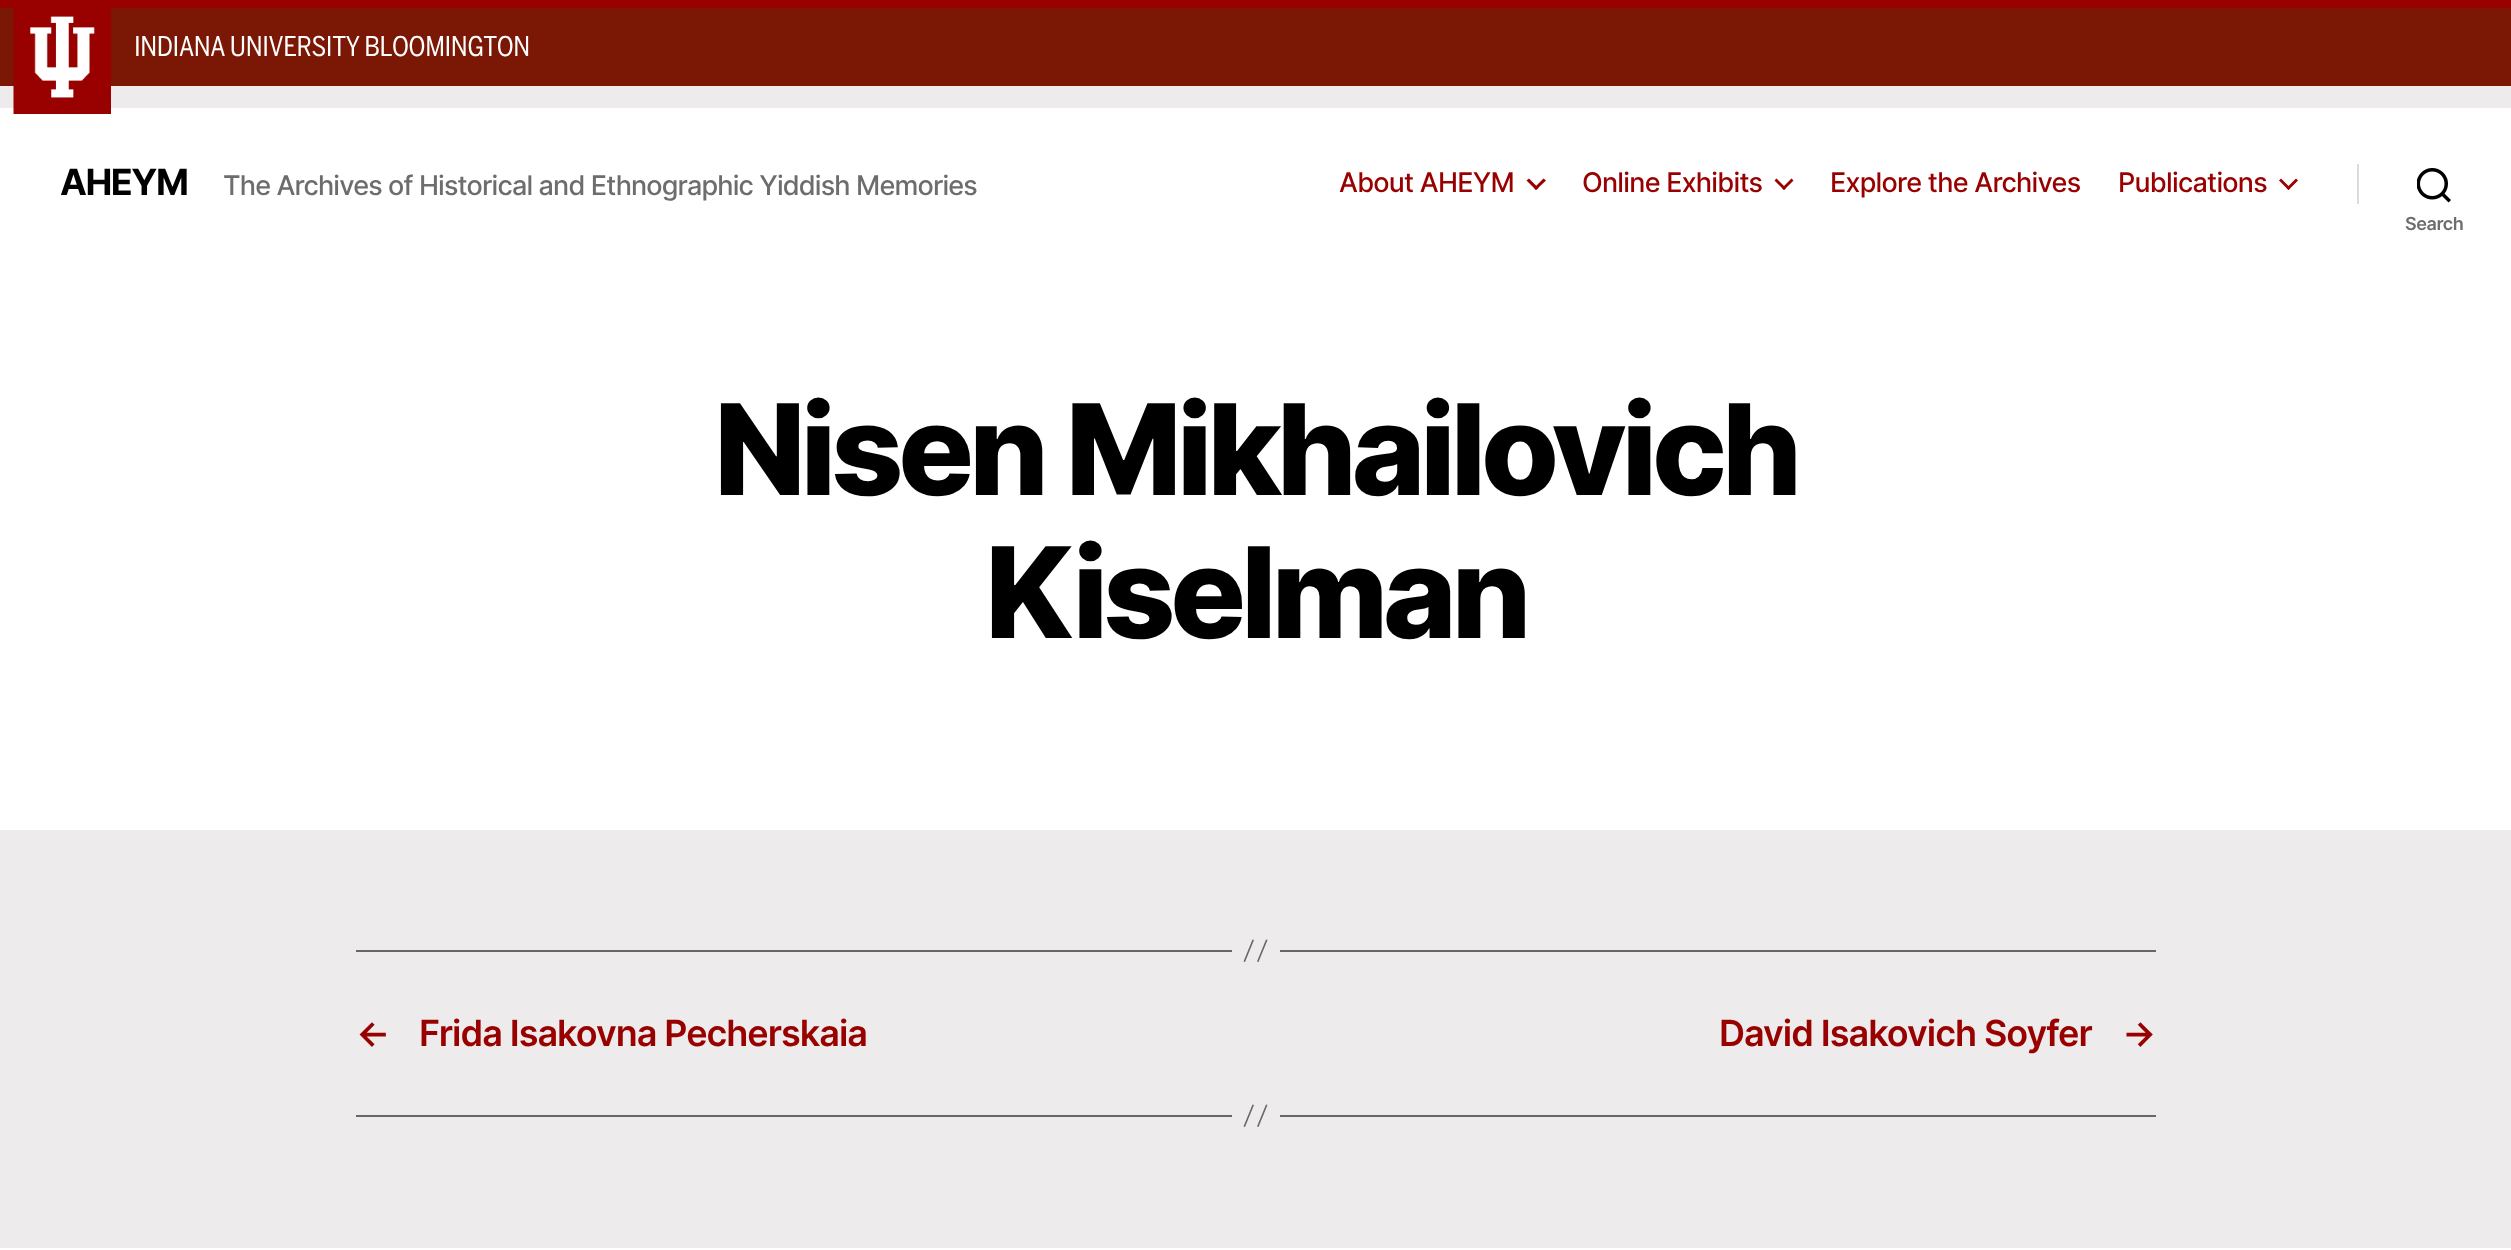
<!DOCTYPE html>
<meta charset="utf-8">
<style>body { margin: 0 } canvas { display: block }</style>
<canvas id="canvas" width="2511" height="1250"></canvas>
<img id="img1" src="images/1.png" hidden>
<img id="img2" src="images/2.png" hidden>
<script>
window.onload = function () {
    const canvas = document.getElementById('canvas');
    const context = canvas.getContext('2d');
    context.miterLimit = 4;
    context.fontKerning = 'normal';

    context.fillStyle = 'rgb(237, 235, 235)';
    context.fillRect(0, 0, 2511, 1250);
    context.fillStyle = 'rgb(122, 23, 5)';
    context.fillRect(0, 8, 2511, 78);
    context.fillStyle = 'rgb(153, 0, 0)';
    context.fillRect(0, 0, 2511, 8);
    context.fillStyle = 'rgb(255, 255, 255)';
    context.fillRect(0, 108, 2511, 722);
    context.drawImage(document.getElementById('img1'), 13, 8, 98, 106);
    context.fillStyle = 'rgb(153, 0, 0)';
    context.beginPath();
    context.moveTo(1526.5, 180.5);
    context.lineTo(1529, 178.5);
    context.lineTo(1538.5, 188);
    context.lineTo(1536, 190);
    context.closePath();
    context.fill();
    context.beginPath();
    context.moveTo(1534, 188);
    context.lineTo(1543.5, 178.5);
    context.lineTo(1546, 180.5);
    context.lineTo(1536, 190);
    context.closePath();
    context.fill();
    context.beginPath();
    context.moveTo(1774.5, 180.5);
    context.lineTo(1776.5, 178.5);
    context.lineTo(1786, 188);
    context.lineTo(1784, 190);
    context.closePath();
    context.fill();
    context.beginPath();
    context.moveTo(1782, 188);
    context.lineTo(1791.5, 178.5);
    context.lineTo(1793.5, 180.5);
    context.lineTo(1784, 190);
    context.closePath();
    context.fill();
    context.beginPath();
    context.moveTo(2279, 180.5);
    context.lineTo(2281, 178.5);
    context.lineTo(2290.5, 188);
    context.lineTo(2288.5, 190);
    context.closePath();
    context.fill();
    context.beginPath();
    context.moveTo(2286.5, 188);
    context.lineTo(2296, 178.5);
    context.lineTo(2298, 180.5);
    context.lineTo(2288.5, 190);
    context.closePath();
    context.fill();
    context.fillStyle = 'rgb(219, 219, 219)';
    context.fillRect(2357, 164, 2, 40);
    context.drawImage(document.getElementById('img2'), 2417, 168, 34, 35);
    context.fillStyle = 'rgb(107, 101, 101)';
    context.fillRect(1280, 950, 876, 2);
    context.fillRect(356, 950, 876, 2);
    context.beginPath();
    context.moveTo(1252.5, 939.5);
    context.lineTo(1254, 940);
    context.lineTo(1245, 962);
    context.lineTo(1243.5, 961.5);
    context.closePath();
    context.moveTo(1266, 939.5);
    context.lineTo(1267.5, 940);
    context.lineTo(1258.5, 962);
    context.lineTo(1257, 961.5);
    context.closePath();
    context.fill();
    context.fillRect(1280, 1115, 876, 2);
    context.fillRect(356, 1115, 876, 2);
    context.beginPath();
    context.moveTo(1252.5, 1104.5);
    context.lineTo(1254, 1105);
    context.lineTo(1245, 1127);
    context.lineTo(1243.5, 1126.5);
    context.closePath();
    context.moveTo(1266, 1104.5);
    context.lineTo(1267.5, 1105);
    context.lineTo(1258.5, 1127);
    context.lineTo(1257, 1126.5);
    context.closePath();
    context.fill();
    context.fillStyle = 'rgb(255, 255, 255)';
    context.fillRect(0, 1248, 2511, 2);
    context.letterSpacing = '-0.4px';
    context.font = '27px "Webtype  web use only"';
    context.fillText('INDIANA UNIVERSITY BLOOMINGTON', 134, 56);
    context.letterSpacing = '-1.5px';
    context.font = 'bold 36px Inter';
    context.fillStyle = 'rgb(0, 0, 0)';
    context.fillText('AHEYM', 60, 195);
    context.letterSpacing = '-0.85px';
    context.font = '500 27px Inter';
    context.fillStyle = 'rgb(109, 109, 109)';
    context.fillText('The Archives of Historical and Ethnographic Yiddish Memories', 223, 195);
    context.letterSpacing = '-0.75px';
    context.fillStyle = 'rgb(153, 0, 0)';
    context.fillText('About AHEYM', 1339, 192);
    context.fillText('Online Exhibits', 1582, 192);
    context.fillText('Explore the Archives', 1830, 192);
    context.fillText('Publications', 2118, 192);
    context.letterSpacing = '-0.4px';
    context.font = '600 18px Inter';
    context.fillStyle = 'rgb(109, 109, 109)';
    context.fillText('Search', 2405, 230);
    context.letterSpacing = '-5.25px';
    context.font = '800 126px Inter';
    context.fillStyle = 'rgb(0, 0, 0)';
    context.fillText('Nisen Mikhailovich', 714, 495);
    context.fillText('Kiselman', 985, 638);
    context.letterSpacing = '-1px';
    context.font = '600 36px Inter';
    context.fillStyle = 'rgb(153, 0, 0)';
    context.fillText('←', 356, 1046);
    context.fillText('Frida Isakovna Pecherskaia', 419, 1046);
    context.fillText('David Isakovich Soyfer', 1719, 1046);
    context.fillText('→', 2122, 1046);
};
</script>
